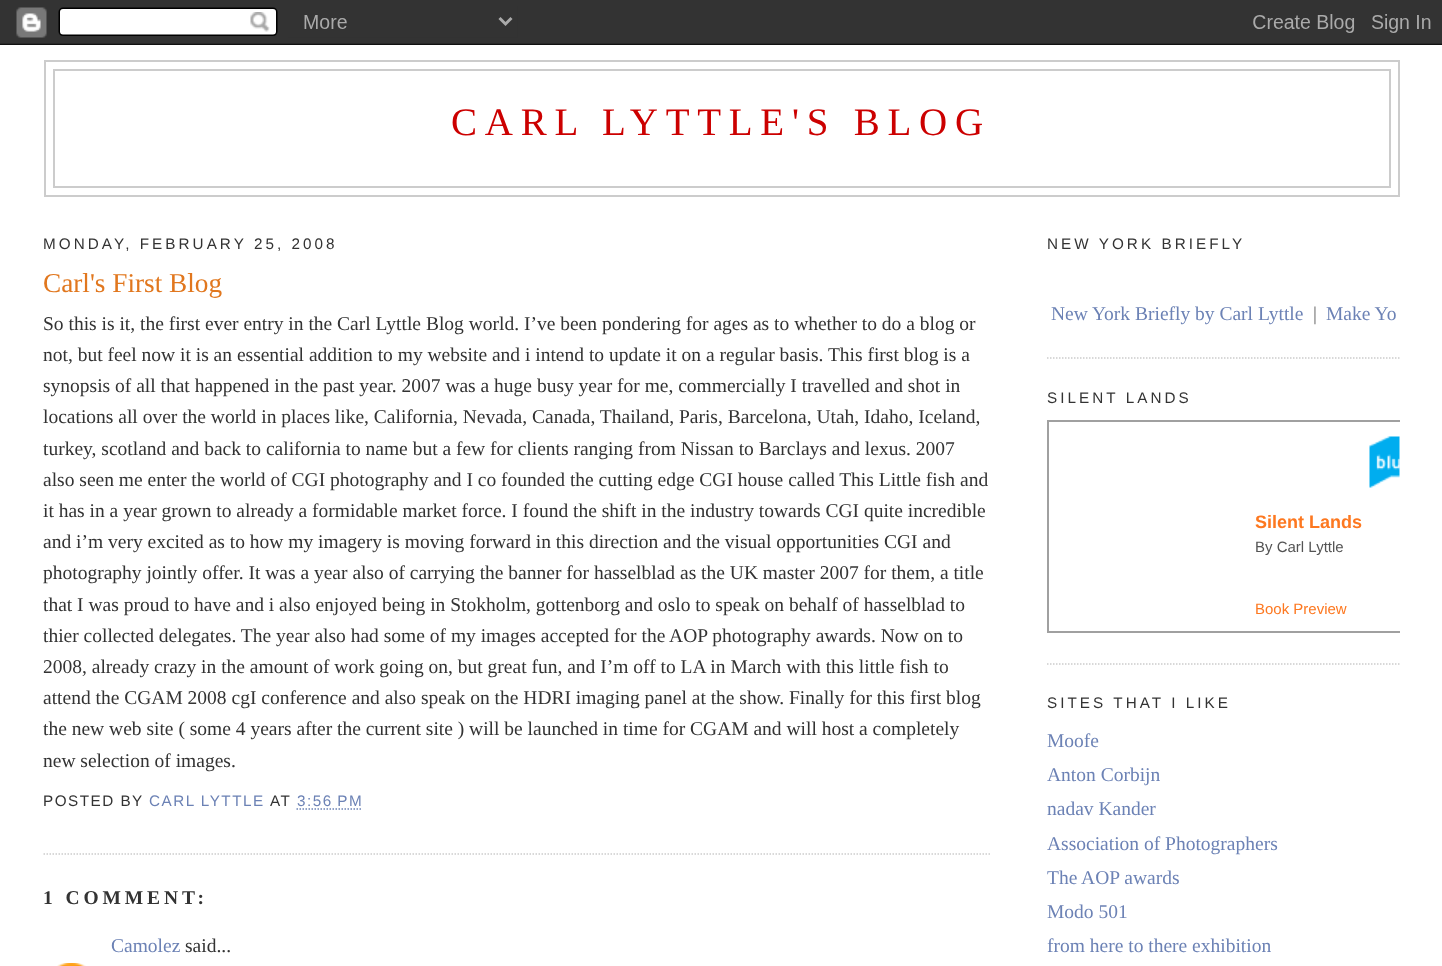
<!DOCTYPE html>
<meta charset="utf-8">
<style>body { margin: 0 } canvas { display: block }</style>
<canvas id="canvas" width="1442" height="966"></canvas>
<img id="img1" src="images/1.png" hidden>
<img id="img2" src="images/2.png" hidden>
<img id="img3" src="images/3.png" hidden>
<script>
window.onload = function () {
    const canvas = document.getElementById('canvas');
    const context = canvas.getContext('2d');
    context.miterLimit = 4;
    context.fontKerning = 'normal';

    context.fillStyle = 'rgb(255, 255, 255)';
    context.fillRect(0, 0, 1442, 966);
    context.drawImage(document.getElementById('img1'), 0, 0, 1442, 45);
    context.strokeStyle = 'rgb(204, 204, 204)';
    context.lineWidth = 2;
    context.strokeRect(45, 61, 1354, 135);
    context.strokeRect(54, 70, 1336, 117);
    context.beginPath();
    context.moveTo(43.5, 854);
    context.lineTo(990, 854);
    context.lineWidth = 1.5;
    context.setLineDash([1.5, 1.5]);
    context.stroke();
    context.beginPath();
    context.moveTo(296.5, 809);
    context.lineTo(362.5, 809);
    context.strokeStyle = 'rgb(108, 130, 181)';
    context.stroke();
    context.drawImage(document.getElementById('img2'), 57, 963, 29, 3);
    context.beginPath();
    context.moveTo(1047, 358);
    context.lineTo(1399.5, 358);
    context.strokeStyle = 'rgb(204, 204, 204)';
    context.stroke();
    context.beginPath();
    context.moveTo(1047, 664);
    context.lineTo(1399.5, 664);
    context.stroke();
    context.save();
    context.beginPath();
    context.rect(1047, 212, 353, 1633);
    context.clip();
    context.strokeStyle = 'rgb(160, 160, 160)';
    context.lineWidth = 2;
    context.setLineDash([]);
    context.strokeRect(1048, 421, 391, 211);
    context.restore();
    context.drawImage(document.getElementById('img3'), 1369, 436, 31, 52);
    context.letterSpacing = '7.75px';
    context.font = '39px Liberation Serif';
    context.fillStyle = 'rgb(204, 0, 0)';
    context.fillText('CARL LYTTLE\'S BLOG', 451, 135);
    context.letterSpacing = '3.05px';
    context.font = '15.25px Liberation Sans';
    context.fillStyle = 'rgb(51, 51, 51)';
    context.fillText('MONDAY, FEBRUARY 25, 2008', 43, 249);
    context.letterSpacing = '0px';
    context.font = '27.25px Liberation Serif';
    context.fillStyle = 'rgb(225, 119, 30)';
    context.fillText('Carl\'s First Blog', 43, 292);
    context.font = '19.5px Liberation Serif';
    context.fillStyle = 'rgb(51, 51, 51)';
    context.fillText('So this is it, the first ever entry in the Carl Lyttle Blog world. I’ve been pondering for ages as to whether to do a blog or', 43, 330);
    context.fillText('not, but feel now it is an essential addition to my website and i intend to update it on a regular basis. This first blog is a', 43, 361);
    context.fillText('synopsis of all that happened in the past year. 2007 was a huge busy year for me, commercially I travelled and shot in', 43, 392);
    context.fillText('locations all over the world in places like, California, Nevada, Canada, Thailand, Paris, Barcelona, Utah, Idaho, Iceland,', 43, 423);
    context.fillText('turkey, scotland and back to california to name but a few for clients ranging from Nissan to Barclays and lexus. 2007', 43, 455);
    context.fillText('also seen me enter the world of CGI photography and I co founded the cutting edge CGI house called This Little fish and', 43, 486);
    context.fillText('it has in a year grown to already a formidable market force. I found the shift in the industry towards CGI quite incredible', 43, 517);
    context.fillText('and i’m very excited as to how my imagery is moving forward in this direction and the visual opportunities CGI and', 43, 548);
    context.fillText('photography jointly offer. It was a year also of carrying the banner for hasselblad as the UK master 2007 for them, a title', 43, 579);
    context.fillText('that I was proud to have and i also enjoyed being in Stokholm, gottenborg and oslo to speak on behalf of hasselblad to', 43, 611);
    context.fillText('thier collected delegates. The year also had some of my images accepted for the AOP photography awards. Now on to', 43, 642);
    context.fillText('2008, already crazy in the amount of work going on, but great fun, and I’m off to LA in March with this little fish to', 43, 673);
    context.fillText('attend the CGAM 2008 cgI conference and also speak on the HDRI imaging panel at the show. Finally for this first blog', 43, 704);
    context.fillText('the new web site ( some 4 years after the current site ) will be launched in time for CGAM and will host a completely', 43, 735);
    context.fillText('new selection of images.', 43, 767);
    context.letterSpacing = '1.5px';
    context.font = '15.25px Liberation Sans';
    context.fillText('POSTED BY', 43, 806);
    context.fillStyle = 'rgb(108, 130, 181)';
    context.fillText('CARL LYTTLE', 149, 806);
    context.fillStyle = 'rgb(51, 51, 51)';
    context.fillText('AT', 270, 806);
    context.fillStyle = 'rgb(108, 130, 181)';
    context.fillText('3:56 PM', 297, 806);
    context.letterSpacing = '3.9px';
    context.font = 'bold 19.5px Liberation Serif';
    context.fillStyle = 'rgb(51, 51, 51)';
    context.fillText('1 COMMENT:', 43, 904);
    context.letterSpacing = '0px';
    context.font = '19.5px Liberation Serif';
    context.fillStyle = 'rgb(108, 130, 181)';
    context.fillText('Camolez', 111, 952);
    context.fillStyle = 'rgb(51, 51, 51)';
    context.fillText('said...', 185, 952);
    context.letterSpacing = '3.05px';
    context.font = '15.25px Liberation Sans';
    context.fillText('NEW YORK BRIEFLY', 1047, 249);
    context.letterSpacing = '0px';
    context.font = '19.5px Liberation Serif';
    context.fillStyle = 'rgb(108, 130, 181)';
    context.fillText('New York Briefly by Carl Lyttle', 1051, 320);
    context.fillStyle = 'rgb(102, 102, 102)';
    context.fillText('|', 1313, 320);
    context.fillStyle = 'rgb(108, 130, 181)';
    context.fillText('Make Yo', 1326, 320);
    context.letterSpacing = '3.05px';
    context.font = '15.25px Liberation Sans';
    context.fillStyle = 'rgb(51, 51, 51)';
    context.fillText('SILENT LANDS', 1047, 403);
    context.letterSpacing = '0px';
    context.font = 'bold 18px Liberation Sans';
    context.fillStyle = 'rgb(253, 120, 32)';
    context.fillText('Silent Lands', 1255, 528);
    context.font = '15px Liberation Sans';
    context.fillStyle = 'rgb(84, 84, 84)';
    context.fillText('By Carl Lyttle', 1255, 552);
    context.fillStyle = 'rgb(253, 120, 32)';
    context.fillText('Book Preview', 1255, 614);
    context.letterSpacing = '3.05px';
    context.font = '15.25px Liberation Sans';
    context.fillStyle = 'rgb(51, 51, 51)';
    context.fillText('SITES THAT I LIKE', 1047, 708);
    context.letterSpacing = '0px';
    context.font = '19.5px Liberation Serif';
    context.fillStyle = 'rgb(108, 130, 181)';
    context.fillText('Moofe', 1047, 747);
    context.fillText('Anton Corbijn', 1047, 781);
    context.fillText('nadav Kander', 1047, 815);
    context.fillText('Association of Photographers', 1047, 850);
    context.save();
    context.beginPath();
    context.rect(1047, 212, 353, 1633);
    context.clip();
    context.fillText('The AOP awards', 1047, 884);
    context.restore();
    context.fillText('Modo 501', 1047, 918);
    context.fillText('from here to there exhibition', 1047, 952);
};
</script>
